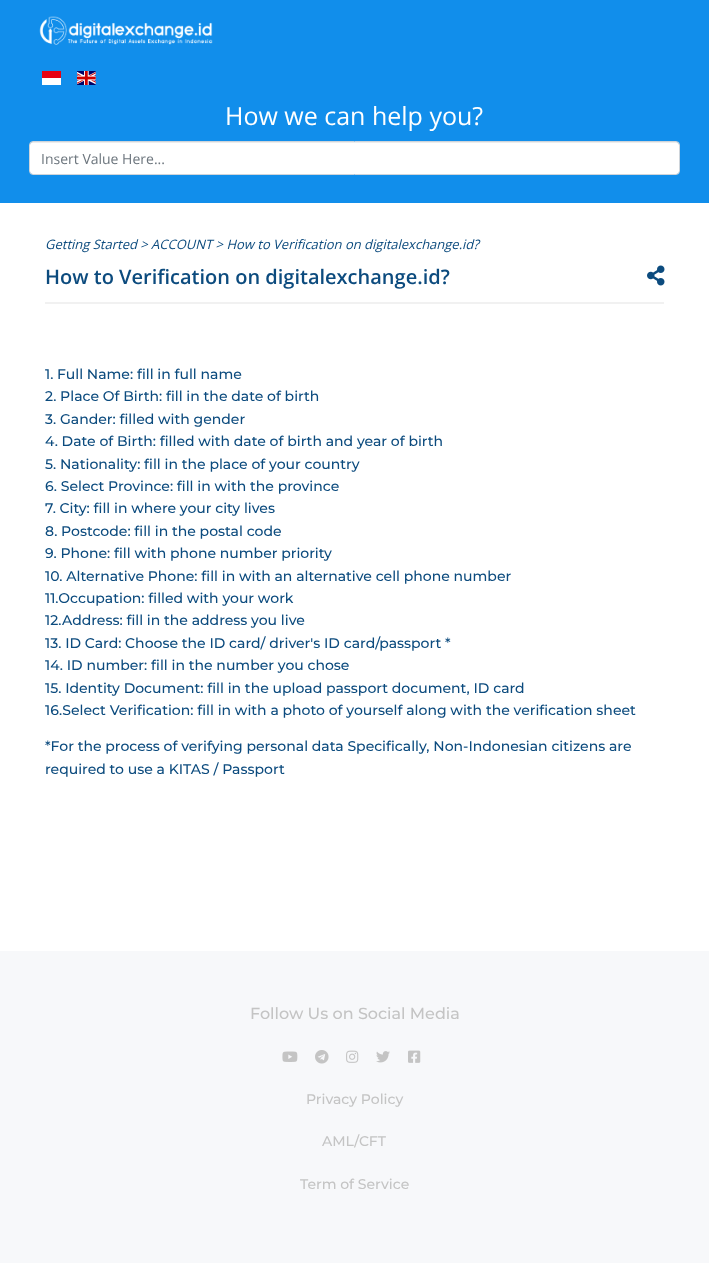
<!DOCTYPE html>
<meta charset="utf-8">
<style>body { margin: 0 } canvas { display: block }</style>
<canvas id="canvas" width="709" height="1263"></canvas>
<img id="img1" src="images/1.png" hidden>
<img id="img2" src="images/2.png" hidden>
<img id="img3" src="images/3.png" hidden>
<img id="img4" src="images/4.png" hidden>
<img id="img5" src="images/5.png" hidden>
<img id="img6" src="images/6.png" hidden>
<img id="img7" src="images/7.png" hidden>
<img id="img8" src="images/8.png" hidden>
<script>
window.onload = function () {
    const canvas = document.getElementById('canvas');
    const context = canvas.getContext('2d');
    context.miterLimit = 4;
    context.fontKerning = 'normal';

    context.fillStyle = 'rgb(255, 255, 255)';
    context.fillRect(0, 0, 709, 1263);
    context.fillStyle = 'rgb(17, 142, 235)';
    context.fillRect(0, 0, 709, 203);
    context.drawImage(document.getElementById('img1'), 39, 16, 174, 29);
    context.fillStyle = 'rgb(231, 0, 17)';
    context.fillRect(42, 71, 19, 7);
    context.fillStyle = 'rgb(255, 255, 255)';
    context.fillRect(42, 78, 19, 7);
    context.drawImage(document.getElementById('img2'), 77, 71, 19, 14);
    context.beginPath();
    context.roundRect(30, 142, 649, 32, 2.5);
    context.fill();
    context.fillStyle = 'rgba(0, 0, 0, 0.07)';
    context.beginPath();
    context.moveTo(32, 143);
    context.lineTo(676, 143);
    context.bezierCurveTo(678, 143, 679, 144, 679, 146);
    context.lineTo(679, 144);
    context.bezierCurveTo(679, 143, 678, 142, 676, 142);
    context.lineTo(32, 142);
    context.bezierCurveTo(31, 142, 30, 143, 30, 144);
    context.lineTo(30, 146);
    context.bezierCurveTo(30, 144, 31, 143, 32, 143);
    context.closePath();
    context.fill();
    context.beginPath();
    context.roundRect(29.5, 141.5, 650, 33, 3.5);
    context.strokeStyle = 'rgb(206, 212, 218)';
    context.stroke();
    context.drawImage(document.getElementById('img3'), 647, 265, 18, 21);
    context.fillStyle = 'rgb(241, 241, 241)';
    context.fillRect(45, 302, 619, 2);
    context.fillStyle = 'rgb(247, 248, 250)';
    context.fillRect(0, 951, 709, 312);
    context.drawImage(document.getElementById('img4'), 282, 1051, 16, 11);
    context.drawImage(document.getElementById('img5'), 315, 1050, 14, 14);
    context.drawImage(document.getElementById('img6'), 346, 1050, 13, 13);
    context.drawImage(document.getElementById('img7'), 376, 1051, 14, 12);
    context.drawImage(document.getElementById('img8'), 408, 1050, 13, 13);
    context.font = '25px Open Sans';
    context.fillStyle = 'rgb(255, 255, 255)';
    context.fillText('How we can help you?', 225, 125);
    context.font = '14px Open Sans';
    context.fillStyle = 'rgb(108, 117, 125)';
    context.fillText('Insert Value Here...', 41, 164);
    context.font = 'italic 13px Open Sans';
    context.fillStyle = 'rgb(12, 75, 126)';
    context.fillText('Getting Started > ACCOUNT > How to Verification on digitalexchange.id?', 45, 249);
    context.font = '600 20px Open Sans';
    context.fillText('How to Verification on digitalexchange.id?', 45, 284);
    context.font = '500 14px Montserrat';
    context.fillText('1. Full Name: fill in full name', 45, 379);
    context.fillText('2. Place Of Birth: fill in the date of birth', 45, 401);
    context.fillText('3. Gander: filled with gender', 45, 424);
    context.fillText('4. Date of Birth: filled with date of birth and year of birth', 45, 446);
    context.fillText('5. Nationality: fill in the place of your country', 45, 469);
    context.fillText('6. Select Province: fill in with the province', 45, 491);
    context.fillText('7. City: fill in where your city lives', 45, 513);
    context.fillText('8. Postcode: fill in the postal code', 45, 536);
    context.fillText('9. Phone: fill with phone number priority', 45, 558);
    context.fillText('10. Alternative Phone: fill in with an alternative cell phone number', 45, 581);
    context.fillText('11.Occupation: filled with your work', 45, 603);
    context.fillText('12.Address: fill in the address you live', 45, 625);
    context.fillText('13. ID Card: Choose the ID card/ driver\'s ID card/passport *', 45, 648);
    context.fillText('14. ID number: fill in the number you chose', 45, 670);
    context.fillText('15. Identity Document: fill in the upload passport document, ID card', 45, 693);
    context.fillText('16.Select Verification: fill in with a photo of yourself along with the verification sheet', 45, 715);
    context.fillText('*For the process of verifying personal data Specifically, Non-Indonesian citizens are', 45, 751);
    context.fillText('required to use a KITAS / Passport', 45, 774);
    context.font = '500 16px Montserrat';
    context.fillStyle = 'rgb(196, 196, 196)';
    context.fillText('Follow Us on Social Media', 250, 1019);
    context.font = '500 14px Montserrat';
    context.fillText('Privacy Policy', 306, 1104);
    context.fillText('AML/CFT', 322, 1146);
    context.fillText('Term of Service', 300, 1189);
};
</script>
